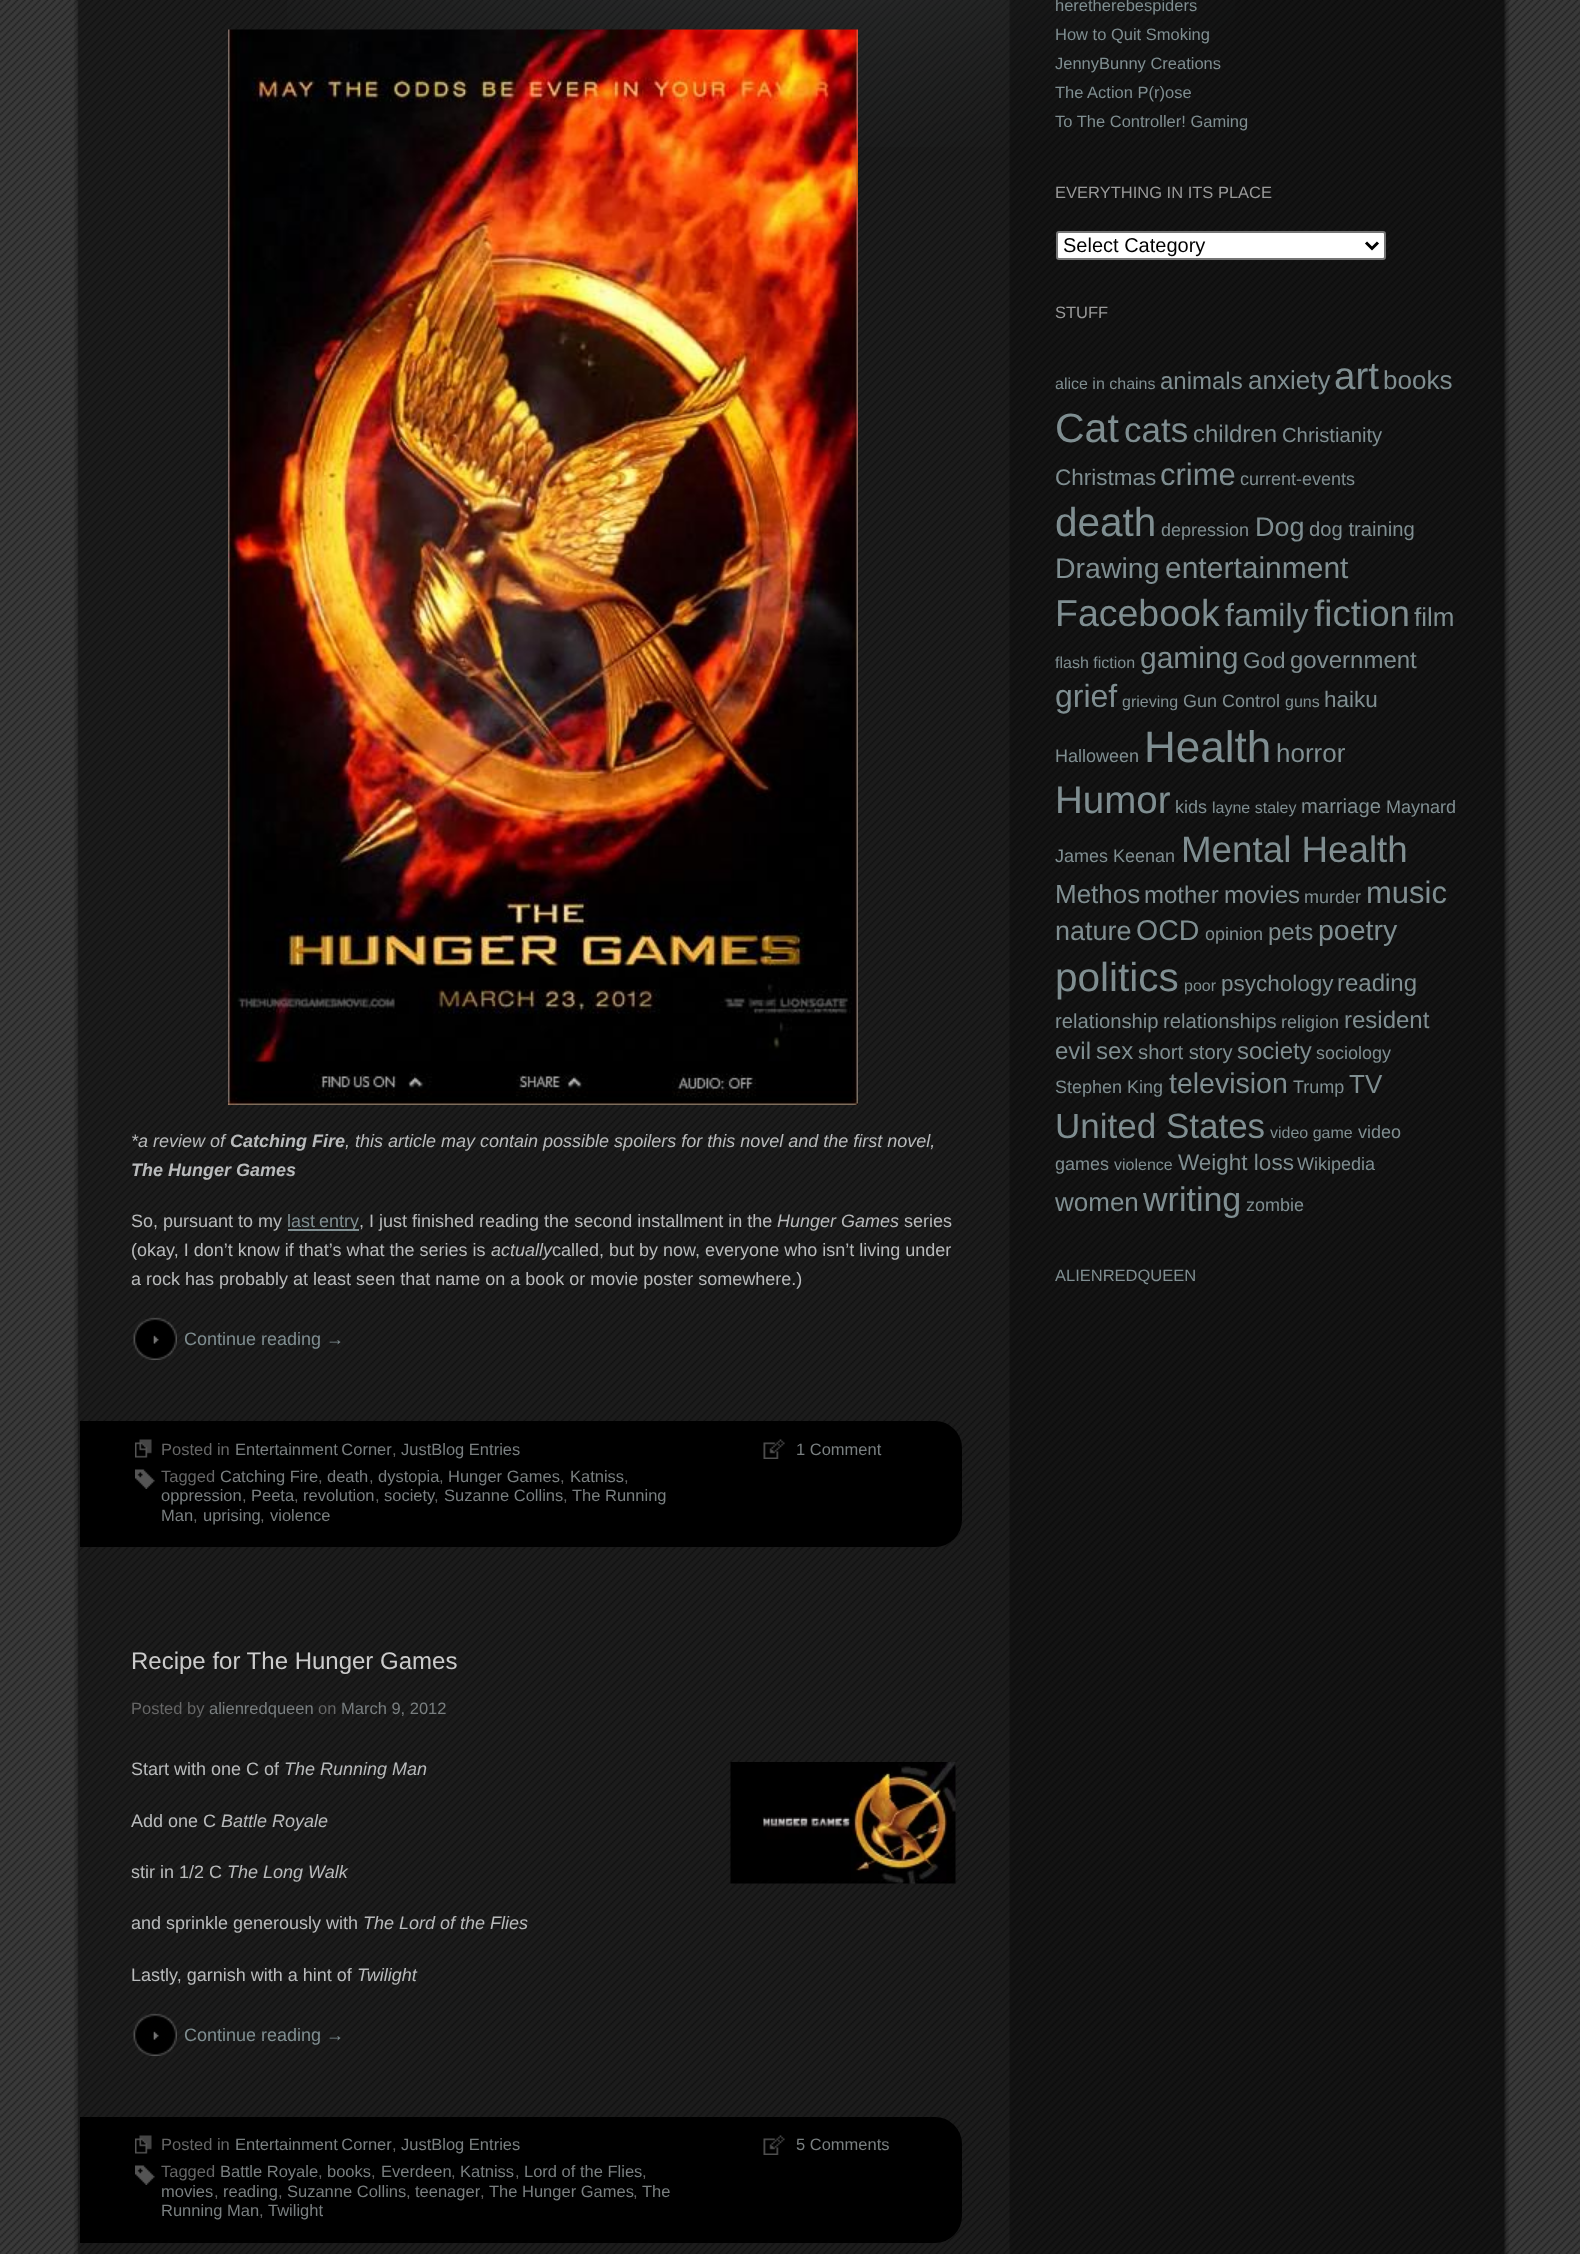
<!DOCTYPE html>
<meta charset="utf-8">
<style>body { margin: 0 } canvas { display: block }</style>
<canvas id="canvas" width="1580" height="2254"></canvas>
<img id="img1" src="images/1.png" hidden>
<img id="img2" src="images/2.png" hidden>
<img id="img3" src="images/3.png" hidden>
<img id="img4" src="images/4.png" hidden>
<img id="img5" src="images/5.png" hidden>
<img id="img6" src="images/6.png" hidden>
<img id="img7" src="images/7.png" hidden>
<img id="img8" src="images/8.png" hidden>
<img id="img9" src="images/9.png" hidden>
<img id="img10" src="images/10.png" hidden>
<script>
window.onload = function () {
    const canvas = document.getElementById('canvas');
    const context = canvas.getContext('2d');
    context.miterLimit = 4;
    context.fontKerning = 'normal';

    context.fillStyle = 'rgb(255, 255, 255)';
    context.fillRect(0, 0, 1580, 2254);
    context.drawImage(document.getElementById('img1'), 0, 0, 1580, 2254);
    context.drawImage(document.getElementById('img2'), 287, 0, 948, 147);
    context.drawImage(document.getElementById('img3'), 74, 0, 1435, 2254);
    context.beginPath();
    context.roundRect(1057, 232, 328, 27, 2);
    context.fill();
    context.strokeStyle = 'rgb(118, 118, 118)';
    context.lineWidth = 2;
    context.stroke();
    context.beginPath();
    context.moveTo(1366, 242.5);
    context.lineTo(1372, 248.5);
    context.lineTo(1378, 242.5);
    context.strokeStyle = 'rgb(0, 0, 0)';
    context.lineWidth = 3;
    context.stroke();
    context.drawImage(document.getElementById('img4'), 228, 29, 630, 1076);
    context.fillStyle = 'rgb(127, 142, 145)';
    context.fillRect(288, 1229, 71, 2);
    context.drawImage(document.getElementById('img5'), 133, 1317, 44, 43);
    context.fillStyle = 'rgb(0, 0, 0)';
    context.beginPath();
    context.roundRect(80, 1421, 882, 126, [0, 27, 27, 0]);
    context.fill();
    context.drawImage(document.getElementById('img6'), 135, 1439, 17, 19);
    context.drawImage(document.getElementById('img7'), 763, 1439, 22, 20);
    context.drawImage(document.getElementById('img8'), 135, 1469, 20, 20);
    context.drawImage(document.getElementById('img9'), 730, 1762, 226, 122);
    context.drawImage(document.getElementById('img10'), 133, 2013, 44, 43);
    context.beginPath();
    context.roundRect(80, 2117, 882, 126, [0, 27, 27, 0]);
    context.fill();
    context.drawImage(document.getElementById('img6'), 135, 2135, 17, 19);
    context.drawImage(document.getElementById('img7'), 763, 2135, 22, 20);
    context.drawImage(document.getElementById('img8'), 135, 2165, 20, 20);
    context.font = '16.5px Liberation Sans';
    context.fillStyle = 'rgb(127, 142, 145)';
    context.fillText('heretherebespiders', 1055, 11);
    context.fillText('How to Quit Smoking', 1055, 40);
    context.fillText('JennyBunny Creations', 1055, 69);
    context.fillText('The Action P(r)ose', 1055, 98);
    context.fillText('To The Controller! Gaming', 1055, 127);
    context.fillStyle = 'rgb(153, 153, 153)';
    context.fillText('EVERYTHING IN ITS PLACE', 1055, 198);
    context.font = '20px Liberation Sans';
    context.fillStyle = 'rgb(0, 0, 0)';
    context.fillText('Select Category', 1063, 252);
    context.font = '16.5px Liberation Sans';
    context.fillStyle = 'rgb(153, 153, 153)';
    context.fillText('STUFF', 1055, 318);
    context.font = '16px Liberation Sans';
    context.fillStyle = 'rgb(127, 142, 145)';
    context.fillText('alice in chains', 1055, 389);
    context.font = '24px Liberation Sans';
    context.fillText('animals', 1160, 389);
    context.font = '26px Liberation Sans';
    context.fillText('anxiety', 1248, 389);
    context.font = '38.5px Liberation Sans';
    context.fillText('art', 1334, 389);
    context.font = '26px Liberation Sans';
    context.fillText('books', 1383, 389);
    context.font = '41px Liberation Sans';
    context.fillText('Cat', 1055, 442);
    context.font = '35px Liberation Sans';
    context.fillText('cats', 1124, 442);
    context.font = '24px Liberation Sans';
    context.fillText('children', 1193, 442);
    context.font = '20.25px Liberation Sans';
    context.fillText('Christianity', 1282, 442);
    context.font = '22.5px Liberation Sans';
    context.fillText('Christmas', 1055, 485);
    context.font = '31px Liberation Sans';
    context.fillText('crime', 1160, 485);
    context.font = '18px Liberation Sans';
    context.fillText('current-events', 1240, 485);
    context.font = '40.5px Liberation Sans';
    context.fillText('death', 1055, 536);
    context.font = '18px Liberation Sans';
    context.fillText('depression', 1161, 536);
    context.font = '27px Liberation Sans';
    context.fillText('Dog', 1255, 536);
    context.font = '20.25px Liberation Sans';
    context.fillText('dog training', 1309, 536);
    context.font = '28.5px Liberation Sans';
    context.fillText('Drawing', 1055, 578);
    context.font = '30px Liberation Sans';
    context.fillText('entertainment', 1165, 578);
    context.font = '37.5px Liberation Sans';
    context.fillText('Facebook', 1055, 626);
    context.font = '32px Liberation Sans';
    context.fillText('family', 1225, 626);
    context.font = '36.75px Liberation Sans';
    context.fillText('fiction', 1314, 626);
    context.font = '26px Liberation Sans';
    context.fillText('film', 1414, 626);
    context.font = '16px Liberation Sans';
    context.fillText('flash fiction', 1055, 668);
    context.font = '30px Liberation Sans';
    context.fillText('gaming', 1140, 668);
    context.font = '22.5px Liberation Sans';
    context.fillText('God', 1243, 668);
    context.font = '24px Liberation Sans';
    context.fillText('government', 1290, 668);
    context.font = '32px Liberation Sans';
    context.fillText('grief', 1055, 707);
    context.font = '16px Liberation Sans';
    context.fillText('grieving', 1122, 707);
    context.font = '18px Liberation Sans';
    context.fillText('Gun Control', 1183, 707);
    context.font = '16px Liberation Sans';
    context.fillText('guns', 1285, 707);
    context.font = '22.5px Liberation Sans';
    context.fillText('haiku', 1324, 707);
    context.font = '18px Liberation Sans';
    context.fillText('Halloween', 1055, 762);
    context.font = '44px Liberation Sans';
    context.fillText('Health', 1144, 762);
    context.font = '26px Liberation Sans';
    context.fillText('horror', 1276, 762);
    context.font = '38.5px Liberation Sans';
    context.fillText('Humor', 1055, 813);
    context.font = '18px Liberation Sans';
    context.fillText('kids', 1175, 813);
    context.font = '16px Liberation Sans';
    context.fillText('layne staley', 1212, 813);
    context.font = '20.25px Liberation Sans';
    context.fillText('marriage', 1301, 813);
    context.font = '18px Liberation Sans';
    context.fillText('Maynard', 1386, 813);
    context.fillText('James Keenan', 1055, 862);
    context.font = '36.75px Liberation Sans';
    context.fillText('Mental Health', 1181, 862);
    context.font = '26px Liberation Sans';
    context.fillText('Methos', 1055, 903);
    context.font = '24px Liberation Sans';
    context.fillText('mother', 1144, 903);
    context.fillText('movies', 1224, 903);
    context.font = '18px Liberation Sans';
    context.fillText('murder', 1304, 903);
    context.font = '31px Liberation Sans';
    context.fillText('music', 1366, 903);
    context.font = '27px Liberation Sans';
    context.fillText('nature', 1055, 940);
    context.font = '28.5px Liberation Sans';
    context.fillText('OCD', 1136, 940);
    context.font = '18px Liberation Sans';
    context.fillText('opinion', 1205, 940);
    context.font = '24px Liberation Sans';
    context.fillText('pets', 1268, 940);
    context.font = '28.5px Liberation Sans';
    context.fillText('poetry', 1318, 940);
    context.font = '40.5px Liberation Sans';
    context.fillText('politics', 1055, 991);
    context.font = '16px Liberation Sans';
    context.fillText('poor', 1184, 991);
    context.font = '22.5px Liberation Sans';
    context.fillText('psychology', 1221, 991);
    context.font = '24px Liberation Sans';
    context.fillText('reading', 1337, 991);
    context.font = '20.25px Liberation Sans';
    context.fillText('relationship', 1055, 1028);
    context.fillText('relationships', 1163, 1028);
    context.font = '18px Liberation Sans';
    context.fillText('religion', 1281, 1028);
    context.font = '24px Liberation Sans';
    context.fillText('resident', 1344, 1028);
    context.fillText('evil', 1055, 1059);
    context.fillText('sex', 1096, 1059);
    context.font = '20.25px Liberation Sans';
    context.fillText('short story', 1138, 1059);
    context.font = '24px Liberation Sans';
    context.fillText('society', 1237, 1059);
    context.font = '18px Liberation Sans';
    context.fillText('sociology', 1316, 1059);
    context.fillText('Stephen King', 1055, 1093);
    context.font = '28.5px Liberation Sans';
    context.fillText('television', 1169, 1093);
    context.font = '18px Liberation Sans';
    context.fillText('Trump', 1293, 1093);
    context.font = '26px Liberation Sans';
    context.fillText('TV', 1349, 1093);
    context.font = '35px Liberation Sans';
    context.fillText('United States', 1055, 1138);
    context.font = '16px Liberation Sans';
    context.fillText('video game', 1270, 1138);
    context.font = '18px Liberation Sans';
    context.fillText('video', 1358, 1138);
    context.fillText('games', 1055, 1170);
    context.font = '16px Liberation Sans';
    context.fillText('violence', 1114, 1170);
    context.font = '22.5px Liberation Sans';
    context.fillText('Weight loss', 1178, 1170);
    context.font = '18px Liberation Sans';
    context.fillText('Wikipedia', 1297, 1170);
    context.font = '26px Liberation Sans';
    context.fillText('women', 1055, 1211);
    context.font = '34px Liberation Sans';
    context.fillText('writing', 1143, 1211);
    context.font = '18px Liberation Sans';
    context.fillText('zombie', 1246, 1211);
    context.font = '16.5px Liberation Sans';
    context.fillText('ALIENREDQUEEN', 1055, 1281);
    context.font = 'italic 18px Liberation Sans';
    context.fillStyle = 'rgb(184, 186, 187)';
    context.fillText('*a review of', 131, 1147);
    context.font = 'italic bold 18px Liberation Sans';
    context.fillText('Catching Fire', 230, 1147);
    context.font = 'italic 18px Liberation Sans';
    context.fillText(', this article may contain possible spoilers for this novel and the first novel,', 345, 1147);
    context.font = 'italic bold 18px Liberation Sans';
    context.fillText('The Hunger Games', 131, 1176);
    context.font = '18px Liberation Sans';
    context.fillText('So, pursuant to my', 131, 1227);
    context.wordSpacing = '-1px';
    context.fillStyle = 'rgb(127, 142, 145)';
    context.fillText('last entry', 287, 1227);
    context.wordSpacing = '0px';
    context.fillStyle = 'rgb(184, 186, 187)';
    context.fillText(', I just finished reading the second installment in the', 359, 1227);
    context.font = 'italic 18px Liberation Sans';
    context.fillText('Hunger Games', 777, 1227);
    context.font = '18px Liberation Sans';
    context.fillText('series', 904, 1227);
    context.fillText('(okay, I don’t know if that’s what the series is', 131, 1256);
    context.font = 'italic 18px Liberation Sans';
    context.fillText('actually', 491, 1256);
    context.font = '18px Liberation Sans';
    context.fillText('called, but by now, everyone who isn’t living under', 552, 1256);
    context.fillText('a rock has probably at least seen that name on a book or movie poster somewhere.)', 131, 1285);
    context.fillStyle = 'rgb(127, 142, 145)';
    context.fillText('Continue reading →', 184, 1345);
    context.font = '16.5px Liberation Sans';
    context.fillStyle = 'rgb(102, 102, 102)';
    context.fillText('Posted in', 161, 1455);
    context.wordSpacing = '-1px';
    context.fillStyle = 'rgb(121, 127, 128)';
    context.fillText('Entertainment Corner', 235, 1455);
    context.wordSpacing = '0px';
    context.fillStyle = 'rgb(102, 102, 102)';
    context.fillText(',', 392, 1455);
    context.fillStyle = 'rgb(121, 127, 128)';
    context.fillText('JustBlog Entries', 401, 1455);
    context.fillText('1 Comment', 796, 1455);
    context.fillStyle = 'rgb(102, 102, 102)';
    context.fillText('Tagged', 161, 1482);
    context.fillStyle = 'rgb(121, 127, 128)';
    context.fillText('Catching Fire', 220, 1482);
    context.fillStyle = 'rgb(102, 102, 102)';
    context.fillText(',', 318, 1482);
    context.fillStyle = 'rgb(121, 127, 128)';
    context.fillText('death', 327, 1482);
    context.fillStyle = 'rgb(102, 102, 102)';
    context.fillText(',', 369, 1482);
    context.fillStyle = 'rgb(121, 127, 128)';
    context.fillText('dystopia', 378, 1482);
    context.fillStyle = 'rgb(102, 102, 102)';
    context.fillText(',', 439, 1482);
    context.fillStyle = 'rgb(121, 127, 128)';
    context.fillText('Hunger Games', 448, 1482);
    context.fillStyle = 'rgb(102, 102, 102)';
    context.fillText(',', 560, 1482);
    context.fillStyle = 'rgb(121, 127, 128)';
    context.fillText('Katniss', 570, 1482);
    context.fillStyle = 'rgb(102, 102, 102)';
    context.fillText(',', 624, 1482);
    context.fillStyle = 'rgb(121, 127, 128)';
    context.fillText('oppression', 161, 1501);
    context.fillStyle = 'rgb(102, 102, 102)';
    context.fillText(',', 242, 1501);
    context.fillStyle = 'rgb(121, 127, 128)';
    context.fillText('Peeta', 251, 1501);
    context.fillStyle = 'rgb(102, 102, 102)';
    context.fillText(',', 294, 1501);
    context.fillStyle = 'rgb(121, 127, 128)';
    context.fillText('revolution', 303, 1501);
    context.fillStyle = 'rgb(102, 102, 102)';
    context.fillText(',', 375, 1501);
    context.fillStyle = 'rgb(121, 127, 128)';
    context.fillText('society', 384, 1501);
    context.fillStyle = 'rgb(102, 102, 102)';
    context.fillText(',', 434, 1501);
    context.fillStyle = 'rgb(121, 127, 128)';
    context.fillText('Suzanne Collins', 444, 1501);
    context.fillStyle = 'rgb(102, 102, 102)';
    context.fillText(',', 563, 1501);
    context.fillStyle = 'rgb(121, 127, 128)';
    context.fillText('The Running', 572, 1501);
    context.fillText('Man', 161, 1521);
    context.fillStyle = 'rgb(102, 102, 102)';
    context.fillText(',', 193, 1521);
    context.fillStyle = 'rgb(121, 127, 128)';
    context.fillText('uprising', 203, 1521);
    context.fillStyle = 'rgb(102, 102, 102)';
    context.fillText(',', 260, 1521);
    context.fillStyle = 'rgb(121, 127, 128)';
    context.fillText('violence', 270, 1521);
    context.font = '24px Liberation Sans';
    context.fillStyle = 'rgb(204, 204, 204)';
    context.fillText('Recipe for The Hunger Games', 131, 1669);
    context.font = '16.5px Liberation Sans';
    context.fillStyle = 'rgb(102, 102, 102)';
    context.fillText('Posted by', 131, 1714);
    context.fillStyle = 'rgb(121, 127, 128)';
    context.fillText('alienredqueen', 209, 1714);
    context.fillStyle = 'rgb(102, 102, 102)';
    context.fillText('on', 318, 1714);
    context.fillStyle = 'rgb(121, 127, 128)';
    context.fillText('March 9, 2012', 341, 1714);
    context.font = '18px Liberation Sans';
    context.fillStyle = 'rgb(184, 186, 187)';
    context.fillText('Start with one C of', 131, 1775);
    context.font = 'italic 18px Liberation Sans';
    context.fillText('The Running Man', 284, 1775);
    context.font = '18px Liberation Sans';
    context.fillText('Add one C', 131, 1827);
    context.font = 'italic 18px Liberation Sans';
    context.fillText('Battle Royale', 221, 1827);
    context.font = '18px Liberation Sans';
    context.fillText('stir in 1/2 C', 131, 1878);
    context.font = 'italic 18px Liberation Sans';
    context.fillText('The Long Walk', 227, 1878);
    context.font = '18px Liberation Sans';
    context.fillText('and sprinkle generously with', 131, 1929);
    context.font = 'italic 18px Liberation Sans';
    context.fillText('The Lord of the Flies', 363, 1929);
    context.font = '18px Liberation Sans';
    context.fillText('Lastly, garnish with a hint of', 131, 1981);
    context.font = 'italic 18px Liberation Sans';
    context.fillText('Twilight', 357, 1981);
    context.font = '18px Liberation Sans';
    context.fillStyle = 'rgb(127, 142, 145)';
    context.fillText('Continue reading →', 184, 2041);
    context.font = '16.5px Liberation Sans';
    context.fillStyle = 'rgb(102, 102, 102)';
    context.fillText('Posted in', 161, 2150);
    context.wordSpacing = '-1px';
    context.fillStyle = 'rgb(121, 127, 128)';
    context.fillText('Entertainment Corner', 235, 2150);
    context.wordSpacing = '0px';
    context.fillStyle = 'rgb(102, 102, 102)';
    context.fillText(',', 392, 2150);
    context.fillStyle = 'rgb(121, 127, 128)';
    context.fillText('JustBlog Entries', 401, 2150);
    context.fillText('5 Comments', 796, 2150);
    context.fillStyle = 'rgb(102, 102, 102)';
    context.fillText('Tagged', 161, 2177);
    context.fillStyle = 'rgb(121, 127, 128)';
    context.fillText('Battle Royale', 220, 2177);
    context.fillStyle = 'rgb(102, 102, 102)';
    context.fillText(',', 318, 2177);
    context.fillStyle = 'rgb(121, 127, 128)';
    context.fillText('books', 327, 2177);
    context.fillStyle = 'rgb(102, 102, 102)';
    context.fillText(',', 371, 2177);
    context.fillStyle = 'rgb(121, 127, 128)';
    context.fillText('Everdeen', 381, 2177);
    context.fillStyle = 'rgb(102, 102, 102)';
    context.fillText(',', 451, 2177);
    context.fillStyle = 'rgb(121, 127, 128)';
    context.fillText('Katniss', 460, 2177);
    context.fillStyle = 'rgb(102, 102, 102)';
    context.fillText(',', 515, 2177);
    context.fillStyle = 'rgb(121, 127, 128)';
    context.fillText('Lord of the Flies', 524, 2177);
    context.fillStyle = 'rgb(102, 102, 102)';
    context.fillText(',', 642, 2177);
    context.fillStyle = 'rgb(121, 127, 128)';
    context.fillText('movies', 161, 2197);
    context.fillStyle = 'rgb(102, 102, 102)';
    context.fillText(',', 214, 2197);
    context.fillStyle = 'rgb(121, 127, 128)';
    context.fillText('reading', 223, 2197);
    context.fillStyle = 'rgb(102, 102, 102)';
    context.fillText(',', 278, 2197);
    context.fillStyle = 'rgb(121, 127, 128)';
    context.fillText('Suzanne Collins', 287, 2197);
    context.fillStyle = 'rgb(102, 102, 102)';
    context.fillText(',', 406, 2197);
    context.fillStyle = 'rgb(121, 127, 128)';
    context.fillText('teenager', 415, 2197);
    context.fillStyle = 'rgb(102, 102, 102)';
    context.fillText(',', 480, 2197);
    context.fillStyle = 'rgb(121, 127, 128)';
    context.fillText('The Hunger Games', 489, 2197);
    context.fillStyle = 'rgb(102, 102, 102)';
    context.fillText(',', 633, 2197);
    context.fillStyle = 'rgb(121, 127, 128)';
    context.fillText('The', 642, 2197);
    context.fillText('Running Man', 161, 2216);
    context.fillStyle = 'rgb(102, 102, 102)';
    context.fillText(',', 259, 2216);
    context.fillStyle = 'rgb(121, 127, 128)';
    context.fillText('Twilight', 268, 2216);
};
</script>
